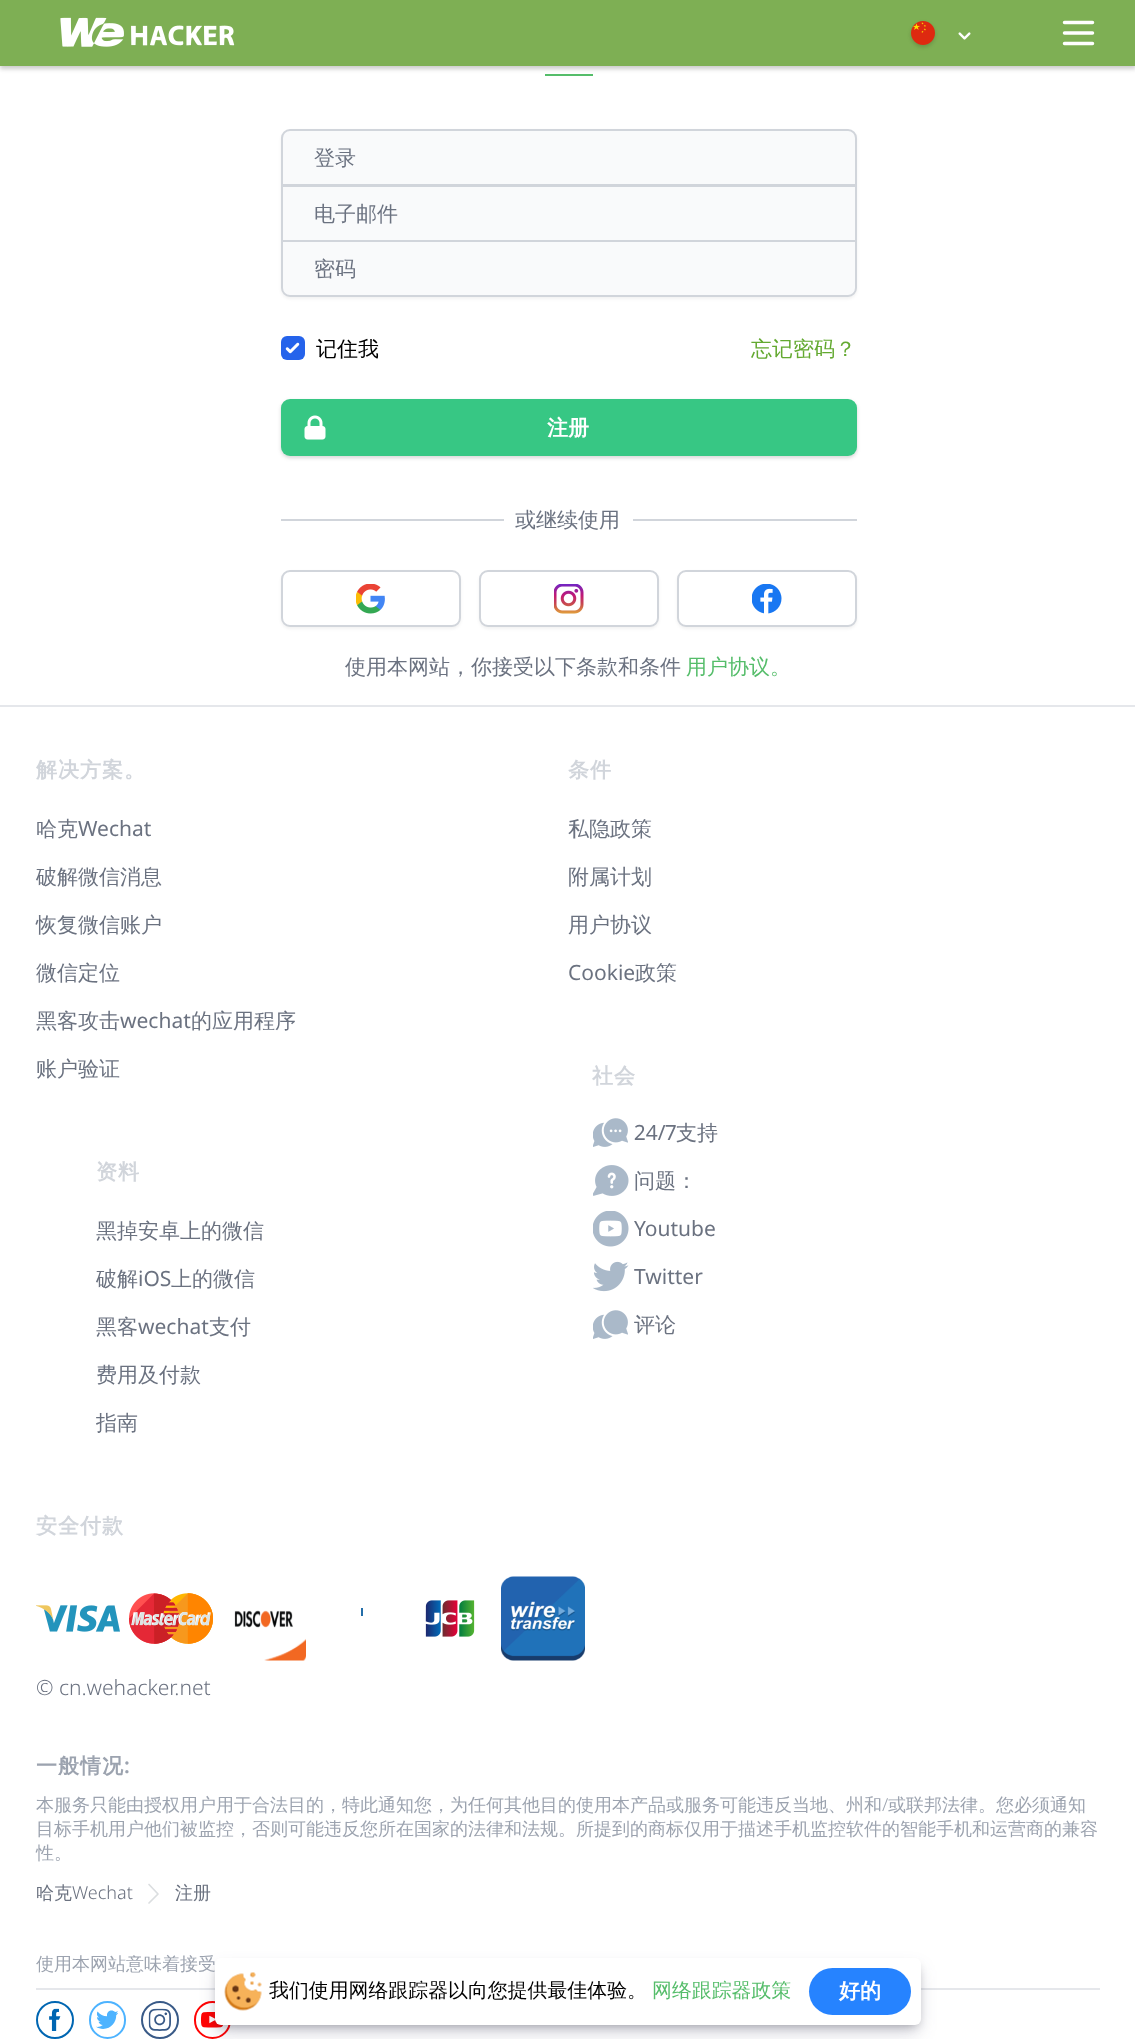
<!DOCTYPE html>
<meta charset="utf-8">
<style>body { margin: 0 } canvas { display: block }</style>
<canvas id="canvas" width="1135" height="2039"></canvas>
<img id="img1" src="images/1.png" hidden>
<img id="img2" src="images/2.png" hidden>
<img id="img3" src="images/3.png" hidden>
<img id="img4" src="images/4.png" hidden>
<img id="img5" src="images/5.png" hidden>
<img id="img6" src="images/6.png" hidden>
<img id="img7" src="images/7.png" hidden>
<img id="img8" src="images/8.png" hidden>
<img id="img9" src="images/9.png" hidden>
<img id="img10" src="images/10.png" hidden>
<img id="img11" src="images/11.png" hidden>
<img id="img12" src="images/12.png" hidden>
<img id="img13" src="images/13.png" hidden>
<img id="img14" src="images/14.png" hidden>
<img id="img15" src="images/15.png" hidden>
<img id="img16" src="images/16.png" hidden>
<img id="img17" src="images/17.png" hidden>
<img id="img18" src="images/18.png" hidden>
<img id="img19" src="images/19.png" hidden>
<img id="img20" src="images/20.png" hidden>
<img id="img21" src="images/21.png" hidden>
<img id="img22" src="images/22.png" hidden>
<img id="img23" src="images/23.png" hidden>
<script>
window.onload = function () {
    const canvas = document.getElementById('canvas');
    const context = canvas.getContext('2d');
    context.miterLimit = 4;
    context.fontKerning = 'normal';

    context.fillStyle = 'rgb(255, 255, 255)';
    context.fillRect(0, 0, 1135, 2039);
    context.fillStyle = 'rgb(85, 189, 106)';
    context.fillRect(545, 74, 48, 2);
    context.fillStyle = 'rgba(0, 0, 0, 0.2)';
    context.filter = 'blur(2px)';
    context.beginPath();
    context.rect(0, 3, 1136, 66);
    context.fill();
    context.filter = 'none';
    context.fillStyle = 'rgb(126, 175, 84)';
    context.fillRect(0, 0, 1135, 66);
    context.drawImage(document.getElementById('img1'), 60, 17, 175, 30);
    context.fillStyle = 'rgba(0, 0, 0, 0.06)';
    context.filter = 'blur(1.5px)';
    context.beginPath();
    context.roundRect(911, 23, 24, 24, 12);
    context.fill();
    context.filter = 'none';
    context.fillStyle = 'rgba(0, 0, 0, 0.1)';
    context.filter = 'blur(2px)';
    context.beginPath();
    context.roundRect(911, 23, 24, 24, 12);
    context.fill();
    context.filter = 'none';
    context.drawImage(document.getElementById('img2'), 911, 21, 24, 24);
    context.drawImage(document.getElementById('img3'), 958, 32, 13, 8);
    context.beginPath();
    context.moveTo(1064.5, 22.5);
    context.lineTo(1092.5, 22.5);
    context.moveTo(1064.5, 33);
    context.lineTo(1092.5, 33);
    context.moveTo(1064.5, 43.5);
    context.lineTo(1092.5, 43.5);
    context.strokeStyle = 'rgb(255, 255, 255)';
    context.lineWidth = 3.5;
    context.lineCap = 'round';
    context.lineJoin = 'round';
    context.stroke();
    context.fillStyle = 'rgba(0, 0, 0, 0.05)';
    context.filter = 'blur(1.5px)';
    context.beginPath();
    context.roundRect(281, 131, 576, 168, 9);
    context.fill();
    context.filter = 'none';
    context.fillStyle = 'rgb(249, 250, 251)';
    context.beginPath();
    context.roundRect(282, 130, 574, 55, [8, 8, 0, 0]);
    context.fill();
    context.strokeStyle = 'rgb(209, 213, 219)';
    context.lineWidth = 2;
    context.lineJoin = 'miter';
    context.stroke();
    context.beginPath();
    context.rect(282, 186, 574, 55);
    context.fill();
    context.stroke();
    context.beginPath();
    context.roundRect(282, 241, 574, 55, [0, 0, 8, 8]);
    context.fill();
    context.stroke();
    context.fillStyle = 'rgb(37, 99, 235)';
    context.beginPath();
    context.roundRect(281, 336, 24, 24, 6);
    context.fill();
    context.drawImage(document.getElementById('img4'), 285, 342, 15, 12);
    context.fillStyle = 'rgba(0, 0, 0, 0.06)';
    context.filter = 'blur(1.5px)';
    context.beginPath();
    context.roundRect(281, 401, 576, 57, 9);
    context.fill();
    context.filter = 'none';
    context.fillStyle = 'rgba(0, 0, 0, 0.1)';
    context.filter = 'blur(2px)';
    context.beginPath();
    context.roundRect(281, 401, 576, 57, 9);
    context.fill();
    context.filter = 'none';
    context.fillStyle = 'rgb(55, 199, 132)';
    context.beginPath();
    context.roundRect(281, 399, 576, 57, 9);
    context.fill();
    context.drawImage(document.getElementById('img5'), 304, 415, 22, 25);
    context.fillStyle = 'rgb(209, 213, 219)';
    context.fillRect(281, 519, 576, 2);
    context.fillStyle = 'rgb(255, 255, 255)';
    context.fillRect(504, 519, 129, 2);
    context.fillStyle = 'rgba(0, 0, 0, 0.05)';
    context.filter = 'blur(1.5px)';
    context.beginPath();
    context.roundRect(281, 572, 180, 57, 9);
    context.fill();
    context.filter = 'none';
    context.fillStyle = 'rgb(255, 255, 255)';
    context.beginPath();
    context.roundRect(282, 571, 178, 55, 8);
    context.fill();
    context.stroke();
    context.drawImage(document.getElementById('img6'), 356, 584, 29, 30);
    context.fillStyle = 'rgba(0, 0, 0, 0.05)';
    context.filter = 'blur(1.5px)';
    context.beginPath();
    context.roundRect(479, 572, 180, 57, 9);
    context.fill();
    context.filter = 'none';
    context.fillStyle = 'rgb(255, 255, 255)';
    context.beginPath();
    context.roundRect(480, 571, 178, 55, 8);
    context.fill();
    context.stroke();
    context.drawImage(document.getElementById('img7'), 554, 584, 30, 30);
    context.fillStyle = 'rgba(0, 0, 0, 0.05)';
    context.filter = 'blur(1.5px)';
    context.beginPath();
    context.roundRect(677, 572, 180, 57, 9);
    context.fill();
    context.filter = 'none';
    context.fillStyle = 'rgb(255, 255, 255)';
    context.beginPath();
    context.roundRect(678, 571, 178, 55, 8);
    context.fill();
    context.stroke();
    context.drawImage(document.getElementById('img8'), 752, 584, 30, 30);
    context.fillStyle = 'rgb(229, 231, 235)';
    context.fillRect(0, 705, 1135, 2);
    context.drawImage(document.getElementById('img9'), 593, 1118, 35, 29);
    context.drawImage(document.getElementById('img10'), 593, 1165, 36, 31);
    context.drawImage(document.getElementById('img11'), 593, 1211, 36, 36);
    context.drawImage(document.getElementById('img12'), 593, 1261, 36, 31);
    context.drawImage(document.getElementById('img13'), 593, 1310, 35, 29);
    context.drawImage(document.getElementById('img14'), 36, 1605, 84, 27);
    context.drawImage(document.getElementById('img15'), 129, 1593, 84, 51);
    context.drawImage(document.getElementById('img16'), 234, 1610, 72, 51);
    context.fillStyle = 'rgb(36, 110, 169)';
    context.fillRect(361, 1608, 2, 8);
    context.drawImage(document.getElementById('img17'), 425, 1600, 50, 37);
    context.drawImage(document.getElementById('img18'), 501, 1576, 84, 85);
    context.beginPath();
    context.moveTo(149, 1884.5);
    context.lineTo(158, 1894);
    context.lineTo(149, 1903);
    context.strokeStyle = 'rgb(219, 222, 224)';
    context.lineWidth = 1.7;
    context.lineJoin = 'round';
    context.stroke();
    context.fillStyle = 'rgb(229, 231, 235)';
    context.fillRect(36, 1988, 1064, 2);
    context.beginPath();
    context.arc(55, 2020, 18, 0, 2 * Math.PI);
    context.strokeStyle = 'rgb(0, 102, 178)';
    context.lineWidth = 2;
    context.stroke();
    context.drawImage(document.getElementById('img19'), 49, 2008, 12, 23);
    context.beginPath();
    context.roundRect(90, 2002, 35, 36, 17.5);
    context.strokeStyle = 'rgb(77, 179, 255)';
    context.lineJoin = 'miter';
    context.stroke();
    context.drawImage(document.getElementById('img20'), 96, 2010, 22, 19);
    context.beginPath();
    context.arc(160, 2020, 18, 0, 2 * Math.PI);
    context.strokeStyle = 'rgb(57, 90, 135)';
    context.stroke();
    context.drawImage(document.getElementById('img21'), 148, 2008, 23, 23);
    context.beginPath();
    context.roundRect(195, 2002, 35, 36, 17.5);
    context.strokeStyle = 'rgb(255, 4, 4)';
    context.stroke();
    context.drawImage(document.getElementById('img22'), 201, 2012, 22, 16);
    context.fillStyle = 'rgba(0, 0, 0, 0.3)';
    context.filter = 'blur(5px)';
    context.beginPath();
    context.roundRect(219, 1967, 698, 58, 1.5);
    context.fill();
    context.filter = 'none';
    context.fillStyle = 'rgba(50, 50, 93, 0.25)';
    context.filter = 'blur(9px)';
    context.beginPath();
    context.roundRect(218, 1970, 700, 61, 3);
    context.fill();
    context.filter = 'none';
    context.fillStyle = 'rgb(255, 255, 255)';
    context.beginPath();
    context.roundRect(215, 1958, 706, 67, 6);
    context.fill();
    context.drawImage(document.getElementById('img23'), 224, 1972, 38, 39);
    context.fillStyle = 'rgb(38, 131, 255)';
    context.beginPath();
    context.roundRect(809, 1968, 102, 47, 23.5);
    context.fill();
    context.font = '500 21px WenQuanYi Zen Hei';
    context.fillStyle = 'rgb(107, 114, 128)';
    context.fillText('登录', 314, 165);
    context.fillText('电子邮件', 314, 221);
    context.fillText('密码', 314, 276);
    context.fillStyle = 'rgb(0, 0, 0)';
    context.fillText('记住我', 316, 356);
    context.fillStyle = 'rgb(99, 169, 48)';
    context.fillText('忘记密码？', 751, 356);
    context.font = 'bold 21px WenQuanYi Zen Hei';
    context.fillStyle = 'rgb(255, 255, 255)';
    context.fillText('注册', 547, 435);
    context.font = '500 21px WenQuanYi Zen Hei';
    context.fillStyle = 'rgb(107, 114, 128)';
    context.fillText('或继续使用', 515, 527);
    context.fillText('使用本网站，你接受以下条款和条件', 345, 674);
    context.fillStyle = 'rgb(85, 189, 106)';
    context.fillText('用户协议。', 686, 674);
    context.letterSpacing = '1px';
    context.font = 'bold 21px WenQuanYi Zen Hei';
    context.fillStyle = 'rgb(209, 213, 219)';
    context.fillText('解决方案。', 36, 777);
    context.letterSpacing = '0px';
    context.font = '500 21px WenQuanYi Zen Hei';
    context.fillStyle = 'rgb(107, 114, 128)';
    context.fillText('哈克', 36, 836);
    context.font = '21px Noto Sans';
    context.fillText('Wechat', 78, 836);
    context.font = '500 21px WenQuanYi Zen Hei';
    context.fillText('破解微信消息', 36, 884);
    context.fillText('恢复微信账户', 36, 932);
    context.fillText('微信定位', 36, 980);
    context.fillText('黑客攻击', 36, 1028);
    context.font = '21px Noto Sans';
    context.fillText('wechat', 120, 1028);
    context.font = '500 21px WenQuanYi Zen Hei';
    context.fillText('的应用程序', 191, 1028);
    context.fillText('账户验证', 36, 1076);
    context.letterSpacing = '1px';
    context.font = 'bold 21px WenQuanYi Zen Hei';
    context.fillStyle = 'rgb(209, 213, 219)';
    context.fillText('资料', 96, 1179);
    context.letterSpacing = '0px';
    context.font = '500 21px WenQuanYi Zen Hei';
    context.fillStyle = 'rgb(107, 114, 128)';
    context.fillText('黑掉安卓上的微信', 96, 1238);
    context.fillText('破解', 96, 1286);
    context.font = '21px Noto Sans';
    context.fillText('iOS', 138, 1286);
    context.font = '500 21px WenQuanYi Zen Hei';
    context.fillText('上的微信', 171, 1286);
    context.fillText('黑客', 96, 1334);
    context.font = '21px Noto Sans';
    context.fillText('wechat', 138, 1334);
    context.font = '500 21px WenQuanYi Zen Hei';
    context.fillText('支付', 209, 1334);
    context.fillText('费用及付款', 96, 1382);
    context.fillText('指南', 96, 1430);
    context.letterSpacing = '1px';
    context.font = 'bold 21px WenQuanYi Zen Hei';
    context.fillStyle = 'rgb(209, 213, 219)';
    context.fillText('条件', 568, 777);
    context.letterSpacing = '0px';
    context.font = '500 21px WenQuanYi Zen Hei';
    context.fillStyle = 'rgb(107, 114, 128)';
    context.fillText('私隐政策', 568, 836);
    context.fillText('附属计划', 568, 884);
    context.fillText('用户协议', 568, 932);
    context.font = '21px Noto Sans';
    context.fillText('Cookie', 568, 980);
    context.font = '500 21px WenQuanYi Zen Hei';
    context.fillText('政策', 635, 980);
    context.letterSpacing = '1px';
    context.font = 'bold 21px WenQuanYi Zen Hei';
    context.fillStyle = 'rgb(209, 213, 219)';
    context.fillText('社会', 592, 1083);
    context.letterSpacing = '0px';
    context.font = '21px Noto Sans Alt';
    context.fillStyle = 'rgb(107, 114, 128)';
    context.fillText('24/7', 634, 1140);
    context.font = '500 21px WenQuanYi Zen Hei';
    context.fillText('支持', 676, 1140);
    context.fillText('问题：', 634, 1188);
    context.font = '21px Noto Sans';
    context.fillText('Youtube', 634, 1236);
    context.fillText('Twitter', 634, 1284);
    context.font = '500 21px WenQuanYi Zen Hei';
    context.fillText('评论', 634, 1332);
    context.letterSpacing = '1px';
    context.font = 'bold 21px WenQuanYi Zen Hei';
    context.fillStyle = 'rgb(209, 213, 219)';
    context.fillText('安全付款', 36, 1533);
    context.letterSpacing = '0px';
    context.font = '300 21px Noto Sans';
    context.fillStyle = 'rgb(107, 114, 128)';
    context.fillText('© ‌cn.wehacker.net', 36, 1695);
    context.letterSpacing = '1px';
    context.font = 'bold 21px WenQuanYi Zen Hei';
    context.fillStyle = 'rgb(156, 163, 175)';
    context.fillText('一般情况', 36, 1773);
    context.font = '600 21px Noto Sans';
    context.fillText(':', 124, 1773);
    context.letterSpacing = '0px';
    context.font = '500 18px WenQuanYi Zen Hei';
    context.fillText('本服务只能由授权用户用于合法目的，特此通知您，为任何其他目的使用本产品或服务可能违反当地、州和', 36, 1811);
    context.font = '300 18px Noto Sans';
    context.fillText('/', 882, 1811);
    context.font = '500 18px WenQuanYi Zen Hei';
    context.fillText('或联邦法律。您必须通知', 888, 1811);
    context.fillText('目标手机用户他们被监控，否则可能违反您所在国家的法律和法规。所提到的商标仅用于描述手机监控软件的智能手机和运营商的兼容', 36, 1835);
    context.fillText('性。', 36, 1859);
    context.fillStyle = 'rgb(107, 114, 128)';
    context.fillText('哈克', 36, 1899);
    context.font = '300 18px Noto Sans';
    context.fillText('Wechat', 72, 1899);
    context.font = '500 18px WenQuanYi Zen Hei';
    context.fillText('注册', 175, 1899);
    context.fillStyle = 'rgb(156, 163, 175)';
    context.fillText('使用本网站意味着接受', 36, 1970);
    context.font = '500 19.9px WenQuanYi Zen Hei';
    context.fillStyle = 'rgb(0, 0, 0)';
    context.fillText('我们使用网络跟踪器以向您提供最佳体验。', 269, 1997);
    context.fillStyle = 'rgb(85, 189, 106)';
    context.fillText('网络跟踪器政策', 652, 1997);
    context.font = 'bold 21px WenQuanYi Zen Hei';
    context.fillStyle = 'rgb(255, 255, 255)';
    context.fillText('好的', 839, 1998);
};
</script>
